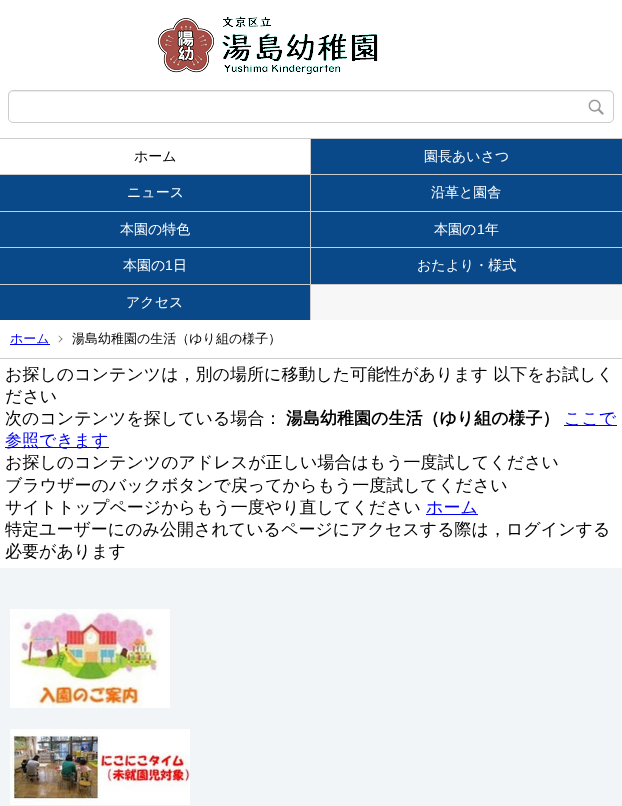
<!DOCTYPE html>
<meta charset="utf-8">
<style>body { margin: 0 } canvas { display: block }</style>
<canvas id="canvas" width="622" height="806"></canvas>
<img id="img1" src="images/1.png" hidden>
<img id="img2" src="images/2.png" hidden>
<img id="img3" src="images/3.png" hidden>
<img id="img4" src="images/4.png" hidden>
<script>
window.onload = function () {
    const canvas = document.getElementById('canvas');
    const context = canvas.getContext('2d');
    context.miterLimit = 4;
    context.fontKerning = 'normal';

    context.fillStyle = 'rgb(255, 255, 255)';
    context.fillRect(0, 0, 622, 806);
    context.drawImage(document.getElementById('img1'), 158, 16, 220, 59);
    context.fillStyle = 'rgb(236, 236, 236)';
    context.beginPath();
    context.moveTo(13, 92);
    context.lineTo(609, 92);
    context.bezierCurveTo(611, 92, 613, 94, 613, 96);
    context.lineTo(613, 95);
    context.bezierCurveTo(613, 93, 611, 91, 609, 91);
    context.lineTo(13, 91);
    context.bezierCurveTo(11, 91, 9, 93, 9, 95);
    context.lineTo(9, 96);
    context.bezierCurveTo(9, 94, 11, 92, 13, 92);
    context.closePath();
    context.fill();
    context.beginPath();
    context.roundRect(8.5, 90.5, 605, 32, 4.5);
    context.strokeStyle = 'rgb(204, 204, 204)';
    context.stroke();
    context.drawImage(document.getElementById('img2'), 588, 99, 16, 16);
    context.fillStyle = 'rgb(247, 247, 247)';
    context.fillRect(311, 285, 311, 35);
    context.fillStyle = 'rgb(204, 204, 204)';
    context.fillRect(0, 138, 622, 1);
    context.fillRect(310, 139, 1, 181);
    context.fillRect(0, 174, 622, 1);
    context.fillStyle = 'rgb(10, 73, 137)';
    context.fillRect(311, 139, 311, 35);
    context.fillStyle = 'rgb(204, 204, 204)';
    context.fillRect(0, 211, 622, 1);
    context.fillStyle = 'rgb(10, 73, 137)';
    context.fillRect(0, 175, 310, 36);
    context.fillRect(311, 175, 311, 36);
    context.fillStyle = 'rgb(204, 204, 204)';
    context.fillRect(0, 247, 622, 1);
    context.fillStyle = 'rgb(10, 73, 137)';
    context.fillRect(0, 212, 310, 35);
    context.fillRect(311, 212, 311, 35);
    context.fillStyle = 'rgb(204, 204, 204)';
    context.fillRect(0, 284, 622, 1);
    context.fillStyle = 'rgb(10, 73, 137)';
    context.fillRect(0, 248, 310, 36);
    context.fillRect(311, 248, 311, 36);
    context.fillRect(0, 285, 310, 35);
    context.fillStyle = 'rgb(204, 204, 204)';
    context.fillRect(0, 358, 622, 1);
    context.fillStyle = 'rgb(0, 0, 238)';
    context.fillRect(10, 344, 40, 1);
    context.fillStyle = 'rgb(119, 119, 119)';
    context.beginPath();
    context.moveTo(59, 335.5);
    context.lineTo(62.5, 339);
    context.lineTo(62, 339.5);
    context.lineTo(58.5, 336);
    context.closePath();
    context.fill();
    context.beginPath();
    context.moveTo(62, 338);
    context.lineTo(62.5, 339);
    context.lineTo(59, 342.5);
    context.lineTo(58.5, 342);
    context.closePath();
    context.fill();
    context.fillStyle = 'rgb(0, 0, 238)';
    context.fillRect(564, 425, 53, 1);
    context.fillRect(5, 447, 104, 1);
    context.fillRect(426, 514, 52, 1);
    context.fillStyle = 'rgb(241, 245, 248)';
    context.fillRect(0, 568, 622, 238);
    context.drawImage(document.getElementById('img3'), 10, 609, 160, 99);
    context.drawImage(document.getElementById('img4'), 10, 729, 180, 76);
    context.font = '500 14px WenQuanYi Zen Hei';
    context.fillStyle = 'rgb(0, 0, 0)';
    context.fillText('ホーム', 134, 161);
    context.fillStyle = 'rgb(255, 255, 255)';
    context.fillText('園長あいさつ', 424, 161);
    context.fillText('ニュース', 127, 197);
    context.fillText('沿革と園舎', 431, 197);
    context.fillText('本園の特色', 120, 234);
    context.fillText('本園の', 434, 234);
    context.font = '14px Liberation Sans';
    context.fillText('1', 477, 234);
    context.font = '500 14px WenQuanYi Zen Hei';
    context.fillText('年', 485, 234);
    context.fillText('本園の', 123, 270);
    context.font = '14px Liberation Sans';
    context.fillText('1', 165, 270);
    context.font = '500 14px WenQuanYi Zen Hei';
    context.fillText('日', 173, 270);
    context.fillText('おたより・様式', 417, 270);
    context.fillText('アクセス', 126, 307);
    context.font = '500 13px WenQuanYi Zen Hei';
    context.fillStyle = 'rgb(0, 0, 238)';
    context.fillText('ホーム', 10, 343);
    context.fillStyle = 'rgb(0, 0, 0)';
    context.fillText('湯島幼稚園の生活（ゆり組の様子）', 72, 343);
    context.font = '500 17px WenQuanYi Zen Hei';
    context.fillText('お探しのコンテンツは，別の場所に移動した可能性があります 以下をお試しく', 5, 380);
    context.fillText('ださい', 5, 402);
    context.fillText('次のコンテンツを探している場合：', 5, 424);
    context.font = 'bold 17px WenQuanYi Zen Hei';
    context.fillText('湯島幼稚園の生活（ゆり組の様子）', 286, 424);
    context.font = '500 17px WenQuanYi Zen Hei';
    context.fillStyle = 'rgb(0, 0, 238)';
    context.fillText('ここで', 564, 424);
    context.fillText('参照できます', 5, 446);
    context.fillStyle = 'rgb(0, 0, 0)';
    context.fillText('お探しのコンテンツのアドレスが正しい場合はもう一度試してください', 5, 468);
    context.fillText('ブラウザーのバックボタンで戻ってからもう一度試してください', 5, 491);
    context.fillText('サイトトップページからもう一度やり直してください', 5, 513);
    context.fillStyle = 'rgb(0, 0, 238)';
    context.fillText('ホーム', 426, 513);
    context.fillStyle = 'rgb(0, 0, 0)';
    context.fillText('特定ユーザーにのみ公開されているページにアクセスする際は，ログインする', 5, 535);
    context.fillText('必要があります', 5, 557);
};
</script>
